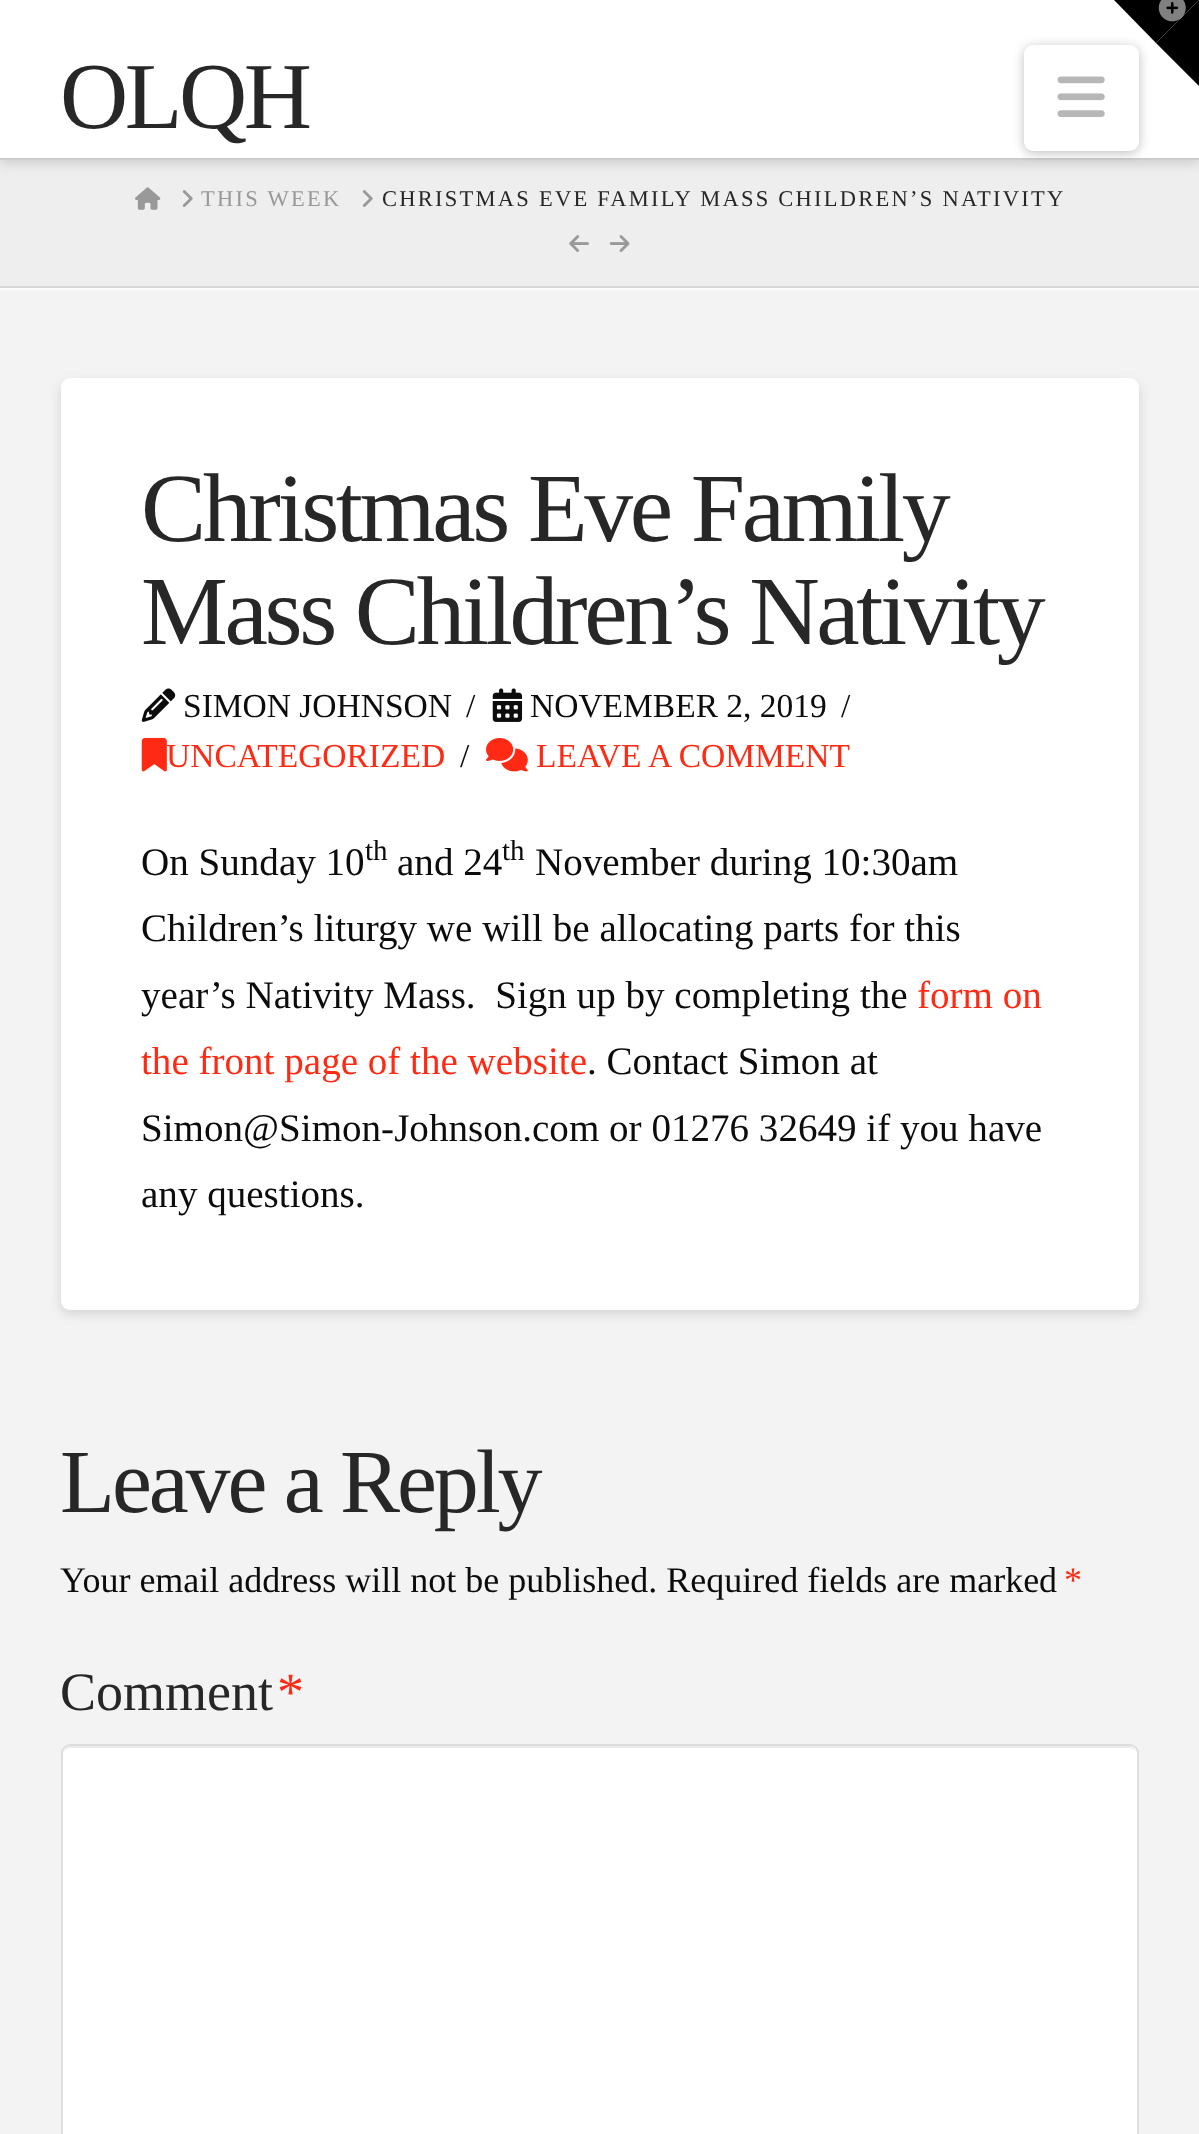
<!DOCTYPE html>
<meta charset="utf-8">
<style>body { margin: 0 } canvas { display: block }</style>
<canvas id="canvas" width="1199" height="2134"></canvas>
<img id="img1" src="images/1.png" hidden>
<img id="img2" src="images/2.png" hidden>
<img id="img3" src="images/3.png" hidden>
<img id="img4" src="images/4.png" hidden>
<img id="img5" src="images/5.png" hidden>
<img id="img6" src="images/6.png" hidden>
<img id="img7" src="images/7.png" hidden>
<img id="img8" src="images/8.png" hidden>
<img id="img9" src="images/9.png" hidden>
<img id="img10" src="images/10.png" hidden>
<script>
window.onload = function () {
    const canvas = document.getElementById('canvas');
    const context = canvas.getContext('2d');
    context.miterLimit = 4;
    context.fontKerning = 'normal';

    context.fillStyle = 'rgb(243, 243, 243)';
    context.fillRect(0, 0, 1199, 2134);
    context.fillStyle = 'rgb(238, 238, 238)';
    context.fillRect(0, 160, 1199, 126);
    context.fillStyle = 'rgba(0, 0, 0, 0.13)';
    context.filter = 'blur(5.5px)';
    context.beginPath();
    context.rect(0, 5, 1199, 159);
    context.fill();
    context.filter = 'none';
    context.fillStyle = 'rgb(255, 255, 255)';
    context.fillRect(0, 0, 1199, 158);
    context.fillStyle = 'rgb(204, 204, 204)';
    context.fillRect(0, 158, 1199, 2);
    context.fillStyle = 'rgba(0, 0, 0, 0.25)';
    context.filter = 'blur(5.5px)';
    context.beginPath();
    context.roundRect(1024, 47, 115, 106, 9);
    context.fill();
    context.filter = 'none';
    context.fillStyle = 'rgb(0, 0, 0)';
    context.beginPath();
    context.moveTo(1114, 0);
    context.lineTo(1199, 0);
    context.lineTo(1156, 43);
    context.closePath();
    context.fill();
    context.beginPath();
    context.moveTo(1199, 0);
    context.lineTo(1199, 86);
    context.lineTo(1156, 43);
    context.closePath();
    context.fill();
    context.drawImage(document.getElementById('img1'), 1158, 0, 28, 22);
    context.fillStyle = 'rgb(255, 255, 255)';
    context.beginPath();
    context.roundRect(1024, 45, 115, 106, 9);
    context.fill();
    context.drawImage(document.getElementById('img2'), 1057, 76, 48, 41);
    context.fillStyle = 'rgb(252, 252, 252)';
    context.fillRect(0, 288, 1199, 2);
    context.fillStyle = 'rgb(214, 214, 214)';
    context.fillRect(0, 286, 1199, 2);
    context.drawImage(document.getElementById('img3'), 135, 187, 26, 23);
    context.drawImage(document.getElementById('img4'), 182, 190, 11, 17);
    context.drawImage(document.getElementById('img4'), 362, 190, 11, 17);
    context.drawImage(document.getElementById('img5'), 569, 235, 20, 17);
    context.drawImage(document.getElementById('img6'), 609, 235, 21, 17);
    context.fillStyle = 'rgba(0, 0, 0, 0.13)';
    context.filter = 'blur(5.5px)';
    context.beginPath();
    context.roundRect(61, 383, 1078, 931, 9);
    context.fill();
    context.filter = 'none';
    context.fillStyle = 'rgb(255, 255, 255)';
    context.beginPath();
    context.roundRect(61, 378, 1078, 932, 9);
    context.fill();
    context.drawImage(document.getElementById('img7'), 141, 688, 35, 34);
    context.drawImage(document.getElementById('img8'), 492, 688, 31, 34);
    context.drawImage(document.getElementById('img9'), 141, 737, 26, 35);
    context.drawImage(document.getElementById('img10'), 486, 738, 42, 34);
    context.beginPath();
    context.roundRect(61, 1744, 1078, 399, 9);
    context.fill();
    context.fillStyle = 'rgb(236, 236, 236)';
    context.beginPath();
    context.moveTo(70, 1748);
    context.lineTo(1130, 1748);
    context.bezierCurveTo(1133, 1748, 1136, 1751, 1136, 1755);
    context.bezierCurveTo(1136, 1751, 1134, 1746, 1129, 1746);
    context.lineTo(70, 1746);
    context.bezierCurveTo(65, 1746, 63, 1751, 63, 1755);
    context.bezierCurveTo(63, 1751, 66, 1748, 70, 1748);
    context.closePath();
    context.fill();
    context.beginPath();
    context.roundRect(62, 1745, 1076, 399, 8);
    context.strokeStyle = 'rgb(221, 221, 221)';
    context.lineWidth = 2;
    context.stroke();
    context.letterSpacing = '-3.5px';
    context.font = '94.5px Liberation Serif';
    context.fillStyle = 'rgb(39, 39, 39)';
    context.fillText('OLQH', 60, 128);
    context.letterSpacing = '2.25px';
    context.font = '22.5px Liberation Serif';
    context.fillStyle = 'rgb(153, 153, 153)';
    context.fillText('THIS WEEK', 201, 206);
    context.fillStyle = 'rgb(39, 39, 39)';
    context.fillText('CHRISTMAS EVE FAMILY MASS CHILDREN’S NATIVITY', 382, 206);
    context.letterSpacing = '-3.4px';
    context.font = '97.75px Liberation Serif';
    context.fillText('Christmas Eve Family', 141, 541);
    context.fillText('Mass Children’s Nativity', 141, 644);
    context.letterSpacing = '0px';
    context.font = '33.5px Liberation Serif';
    context.fillStyle = 'rgb(12, 12, 12)';
    context.fillText('SIMON JOHNSON', 183, 717);
    context.fillText('/', 466, 717);
    context.fillText('NOVEMBER 2, 2019', 530, 717);
    context.fillText('/', 841, 717);
    context.fillStyle = 'rgb(255, 42, 19)';
    context.fillText('UNCATEGORIZED', 166, 767);
    context.fillStyle = 'rgb(12, 12, 12)';
    context.fillText('/', 460, 767);
    context.fillStyle = 'rgb(255, 42, 19)';
    context.fillText('LEAVE A COMMENT', 536, 767);
    context.font = '39.1px Liberation Serif';
    context.fillStyle = 'rgb(12, 12, 12)';
    context.fillText('On Sunday 10', 141, 875);
    context.font = '29px Liberation Serif';
    context.fillText('th', 365, 860);
    context.font = '39.1px Liberation Serif';
    context.fillText('and 24', 397, 875);
    context.font = '29px Liberation Serif';
    context.fillText('th', 502, 860);
    context.font = '39.1px Liberation Serif';
    context.fillText('November during 10:30am', 535, 875);
    context.fillText('Children’s liturgy we will be allocating parts for this', 141, 941);
    context.fillText('year’s Nativity Mass.  Sign up by completing the', 141, 1008);
    context.fillStyle = 'rgb(255, 42, 19)';
    context.fillText('form on', 917, 1008);
    context.fillText('the front page of the website', 141, 1074);
    context.fillStyle = 'rgb(12, 12, 12)';
    context.fillText('. Contact Simon at', 587, 1074);
    context.fillText('Simon@Simon-Johnson.com or 01276 32649 if you have', 141, 1141);
    context.fillText('any questions.', 141, 1207);
    context.letterSpacing = '-3.1px';
    context.font = '90px Liberation Serif';
    context.fillStyle = 'rgb(39, 39, 39)';
    context.fillText('Leave a Reply', 60, 1512);
    context.letterSpacing = '0px';
    context.font = '36px Liberation Serif';
    context.fillStyle = 'rgb(12, 12, 12)';
    context.fillText('Your email address will not be published. Required fields are marked', 60, 1592);
    context.fillStyle = 'rgb(255, 42, 19)';
    context.fillText('*', 1064, 1592);
    context.font = '54px Liberation Serif';
    context.fillStyle = 'rgb(39, 39, 39)';
    context.fillText('Comment', 60, 1710);
    context.fillStyle = 'rgb(255, 42, 19)';
    context.fillText('*', 277, 1710);
};
</script>
